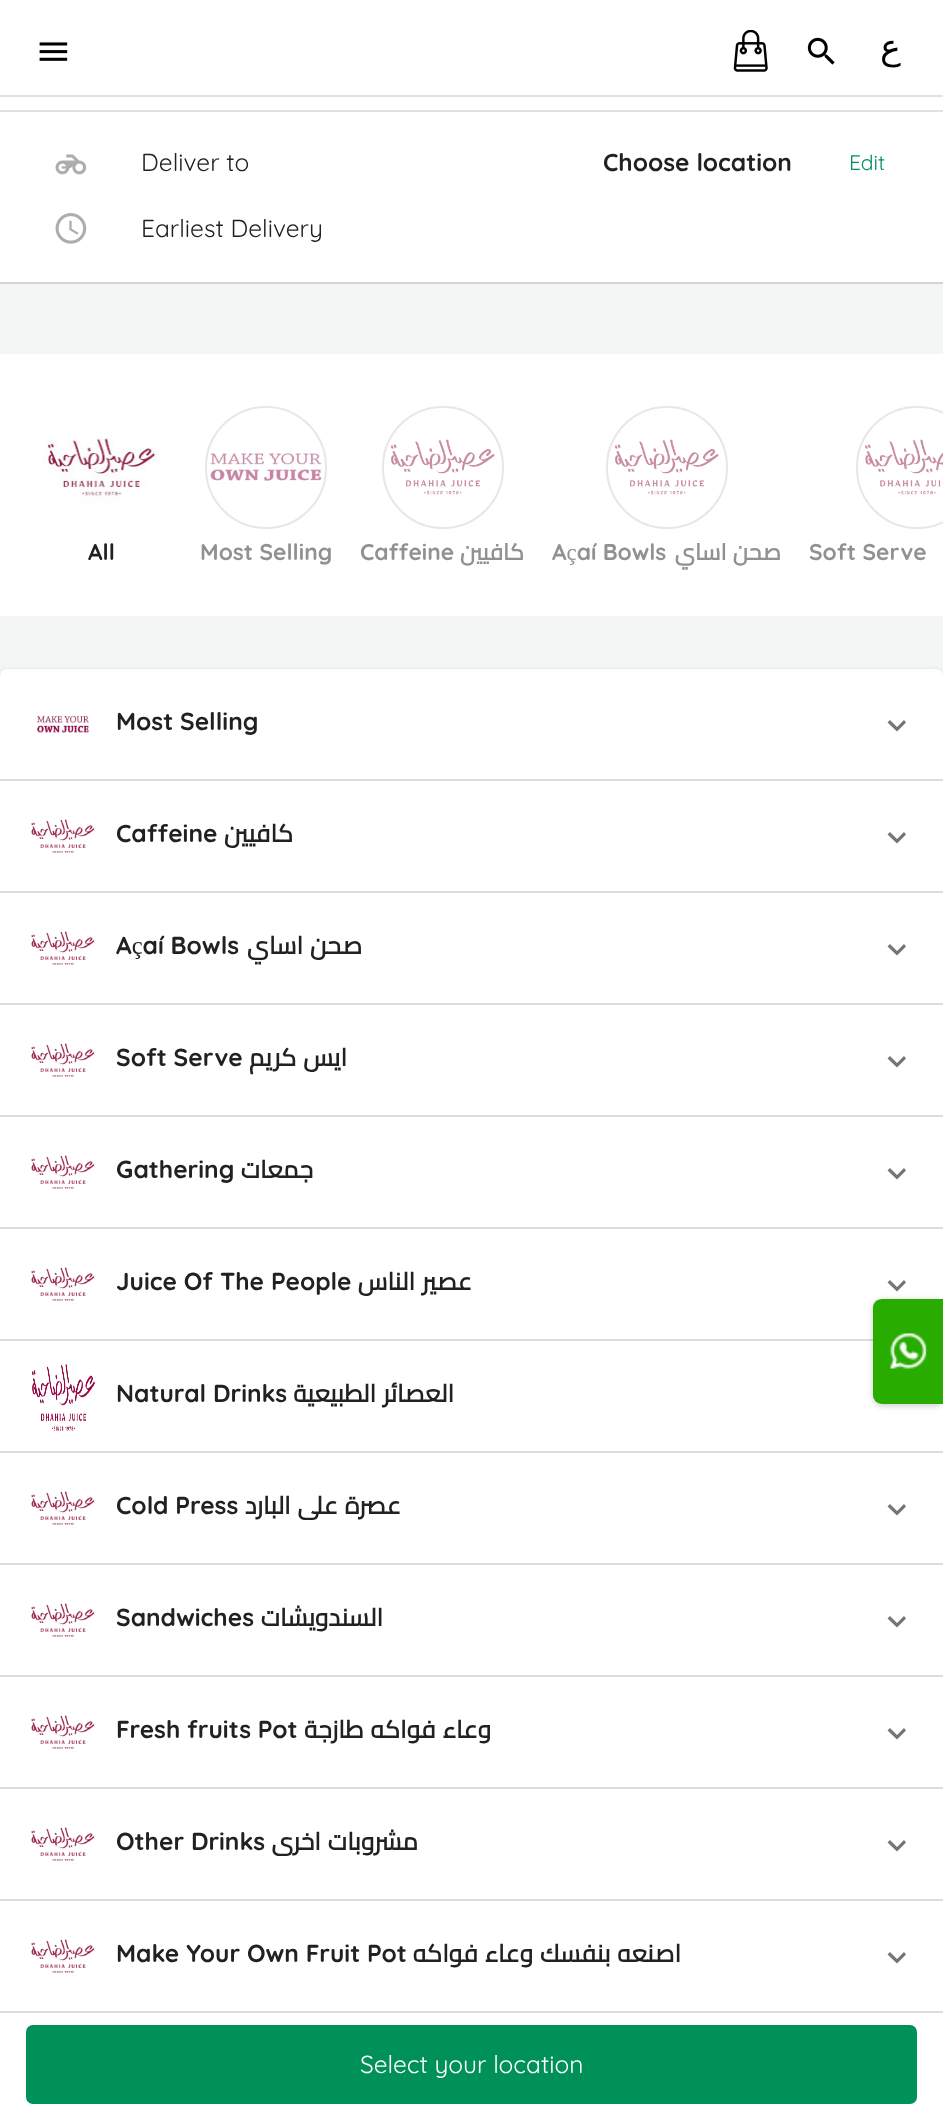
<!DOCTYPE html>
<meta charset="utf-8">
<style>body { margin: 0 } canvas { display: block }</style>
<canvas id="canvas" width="943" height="2121"></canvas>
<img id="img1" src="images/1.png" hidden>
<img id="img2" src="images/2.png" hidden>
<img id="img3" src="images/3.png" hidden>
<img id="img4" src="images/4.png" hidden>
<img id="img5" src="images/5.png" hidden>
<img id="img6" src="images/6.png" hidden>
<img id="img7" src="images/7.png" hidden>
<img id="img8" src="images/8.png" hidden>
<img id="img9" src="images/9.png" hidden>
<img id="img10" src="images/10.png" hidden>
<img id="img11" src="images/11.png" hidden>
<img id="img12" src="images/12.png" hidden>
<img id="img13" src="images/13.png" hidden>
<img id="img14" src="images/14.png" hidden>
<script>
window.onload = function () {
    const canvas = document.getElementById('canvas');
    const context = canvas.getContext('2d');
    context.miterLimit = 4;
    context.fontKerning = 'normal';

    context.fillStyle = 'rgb(244, 245, 245)';
    context.fillRect(0, 0, 943, 2121);
    context.fillStyle = 'rgb(255, 255, 255)';
    context.fillRect(0, 0, 943, 95);
    context.fillStyle = 'rgb(222, 226, 230)';
    context.fillRect(0, 95, 943, 2);
    context.drawImage(document.getElementById('img1'), 39, 42, 29, 19);
    context.drawImage(document.getElementById('img2'), 733, 30, 35, 42);
    context.drawImage(document.getElementById('img3'), 807, 37, 28, 28);
    context.fillStyle = 'rgb(255, 255, 255)';
    context.fillRect(0, 97, 943, 185);
    context.fillStyle = 'rgb(212, 213, 212)';
    context.fillRect(0, 282, 943, 2);
    context.fillStyle = 'rgb(222, 226, 230)';
    context.fillRect(0, 110, 943, 2);
    context.drawImage(document.getElementById('img4'), 55, 154, 32, 21);
    context.drawImage(document.getElementById('img5'), 55, 213, 32, 31);
    context.fillStyle = 'rgb(255, 255, 255)';
    context.fillRect(0, 354, 943, 262);
    context.drawImage(document.getElementById('img6'), 43, 437, 118, 66);
    context.beginPath();
    context.roundRect(206, 407, 120, 121, 60);
    context.strokeStyle = 'rgb(231, 231, 231)';
    context.lineWidth = 2;
    context.stroke();
    context.drawImage(document.getElementById('img7'), 210, 453, 112, 28);
    context.beginPath();
    context.roundRect(383, 407, 120, 121, 60);
    context.stroke();
    context.drawImage(document.getElementById('img8'), 391, 439, 104, 56);
    context.beginPath();
    context.roundRect(607, 407, 120, 121, 60);
    context.stroke();
    context.drawImage(document.getElementById('img8'), 615, 439, 104, 56);
    context.beginPath();
    context.roundRect(857, 407, 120, 121, 60);
    context.stroke();
    context.drawImage(document.getElementById('img9'), 865, 439, 78, 56);
    context.fillStyle = 'rgba(0, 0, 0, 0.12)';
    context.filter = 'blur(2.5px)';
    context.beginPath();
    context.roundRect(0, 670, 943, 112, 7);
    context.fill();
    context.filter = 'none';
    context.fillStyle = 'rgb(255, 255, 255)';
    context.beginPath();
    context.roundRect(0, 669, 943, 112, [7, 7, 0, 0]);
    context.fill();
    context.drawImage(document.getElementById('img10'), 37, 715, 52, 18);
    context.fillStyle = 'rgb(117, 117, 117)';
    context.beginPath();
    context.moveTo(904, 720);
    context.lineTo(897, 727);
    context.lineTo(890, 720);
    context.lineTo(887.5, 722.5);
    context.lineTo(897, 731.5);
    context.lineTo(906, 722.5);
    context.closePath();
    context.fill();
    context.fillStyle = 'rgb(255, 255, 255)';
    context.fillRect(0, 781, 943, 110);
    context.fillStyle = 'rgb(220, 220, 220)';
    context.fillRect(0, 779, 943, 2);
    context.drawImage(document.getElementById('img11'), 31, 819, 64, 34);
    context.fillStyle = 'rgb(117, 117, 117)';
    context.beginPath();
    context.moveTo(904, 832);
    context.lineTo(897, 839);
    context.lineTo(890, 832);
    context.lineTo(887.5, 834.5);
    context.lineTo(897, 843.5);
    context.lineTo(906, 834.5);
    context.closePath();
    context.fill();
    context.fillStyle = 'rgb(255, 255, 255)';
    context.fillRect(0, 893, 943, 110);
    context.fillStyle = 'rgb(220, 220, 220)';
    context.fillRect(0, 891, 943, 2);
    context.drawImage(document.getElementById('img11'), 31, 931, 64, 34);
    context.fillStyle = 'rgb(117, 117, 117)';
    context.beginPath();
    context.moveTo(904, 944);
    context.lineTo(897, 951);
    context.lineTo(890, 944);
    context.lineTo(887.5, 946.5);
    context.lineTo(897, 955.5);
    context.lineTo(906, 946.5);
    context.closePath();
    context.fill();
    context.fillStyle = 'rgb(255, 255, 255)';
    context.fillRect(0, 1005, 943, 110);
    context.fillStyle = 'rgb(220, 220, 220)';
    context.fillRect(0, 1003, 943, 2);
    context.drawImage(document.getElementById('img11'), 31, 1043, 64, 34);
    context.fillStyle = 'rgb(117, 117, 117)';
    context.beginPath();
    context.moveTo(904, 1056);
    context.lineTo(897, 1063);
    context.lineTo(890, 1056);
    context.lineTo(887.5, 1058.5);
    context.lineTo(897, 1067.5);
    context.lineTo(906, 1058.5);
    context.closePath();
    context.fill();
    context.fillStyle = 'rgb(255, 255, 255)';
    context.fillRect(0, 1117, 943, 110);
    context.fillStyle = 'rgb(220, 220, 220)';
    context.fillRect(0, 1115, 943, 2);
    context.drawImage(document.getElementById('img11'), 31, 1155, 64, 34);
    context.fillStyle = 'rgb(117, 117, 117)';
    context.beginPath();
    context.moveTo(904, 1168);
    context.lineTo(897, 1175);
    context.lineTo(890, 1168);
    context.lineTo(887.5, 1170.5);
    context.lineTo(897, 1179.5);
    context.lineTo(906, 1170.5);
    context.closePath();
    context.fill();
    context.fillStyle = 'rgb(255, 255, 255)';
    context.fillRect(0, 1229, 943, 110);
    context.fillStyle = 'rgb(220, 220, 220)';
    context.fillRect(0, 1227, 943, 2);
    context.drawImage(document.getElementById('img12'), 31, 1267, 64, 34);
    context.fillStyle = 'rgb(117, 117, 117)';
    context.beginPath();
    context.moveTo(904, 1280);
    context.lineTo(897, 1287);
    context.lineTo(890, 1280);
    context.lineTo(887.5, 1282.5);
    context.lineTo(897, 1291.5);
    context.lineTo(906, 1282.5);
    context.closePath();
    context.fill();
    context.fillStyle = 'rgb(255, 255, 255)';
    context.fillRect(0, 1341, 943, 110);
    context.fillStyle = 'rgb(220, 220, 220)';
    context.fillRect(0, 1339, 873, 2);
    context.drawImage(document.getElementById('img13'), 32, 1364, 63, 67);
    context.fillStyle = 'rgb(255, 255, 255)';
    context.fillRect(0, 1453, 943, 110);
    context.fillStyle = 'rgb(220, 220, 220)';
    context.fillRect(0, 1451, 943, 2);
    context.drawImage(document.getElementById('img12'), 31, 1491, 64, 34);
    context.fillStyle = 'rgb(117, 117, 117)';
    context.beginPath();
    context.moveTo(904, 1504);
    context.lineTo(897, 1511);
    context.lineTo(890, 1504);
    context.lineTo(887.5, 1506.5);
    context.lineTo(897, 1515.5);
    context.lineTo(906, 1506.5);
    context.closePath();
    context.fill();
    context.fillStyle = 'rgb(255, 255, 255)';
    context.fillRect(0, 1565, 943, 110);
    context.fillStyle = 'rgb(220, 220, 220)';
    context.fillRect(0, 1563, 943, 2);
    context.drawImage(document.getElementById('img12'), 31, 1603, 64, 34);
    context.fillStyle = 'rgb(117, 117, 117)';
    context.beginPath();
    context.moveTo(904, 1616);
    context.lineTo(897, 1623);
    context.lineTo(890, 1616);
    context.lineTo(887.5, 1618.5);
    context.lineTo(897, 1627.5);
    context.lineTo(906, 1618.5);
    context.closePath();
    context.fill();
    context.fillStyle = 'rgb(255, 255, 255)';
    context.fillRect(0, 1677, 943, 110);
    context.fillStyle = 'rgb(220, 220, 220)';
    context.fillRect(0, 1675, 943, 2);
    context.drawImage(document.getElementById('img12'), 31, 1715, 64, 34);
    context.fillStyle = 'rgb(117, 117, 117)';
    context.beginPath();
    context.moveTo(904, 1728);
    context.lineTo(897, 1735);
    context.lineTo(890, 1728);
    context.lineTo(887.5, 1730.5);
    context.lineTo(897, 1739.5);
    context.lineTo(906, 1730.5);
    context.closePath();
    context.fill();
    context.fillStyle = 'rgb(255, 255, 255)';
    context.fillRect(0, 1789, 943, 110);
    context.fillStyle = 'rgb(220, 220, 220)';
    context.fillRect(0, 1787, 943, 2);
    context.drawImage(document.getElementById('img12'), 31, 1827, 64, 34);
    context.fillStyle = 'rgb(117, 117, 117)';
    context.beginPath();
    context.moveTo(904, 1840);
    context.lineTo(897, 1847);
    context.lineTo(890, 1840);
    context.lineTo(887.5, 1842.5);
    context.lineTo(897, 1851.5);
    context.lineTo(906, 1842.5);
    context.closePath();
    context.fill();
    context.fillStyle = 'rgb(255, 255, 255)';
    context.fillRect(0, 1901, 943, 110);
    context.fillStyle = 'rgb(220, 220, 220)';
    context.fillRect(0, 1899, 943, 2);
    context.drawImage(document.getElementById('img12'), 31, 1939, 64, 34);
    context.fillStyle = 'rgb(117, 117, 117)';
    context.beginPath();
    context.moveTo(904, 1952);
    context.lineTo(897, 1959);
    context.lineTo(890, 1952);
    context.lineTo(887.5, 1954.5);
    context.lineTo(897, 1963.5);
    context.lineTo(906, 1954.5);
    context.closePath();
    context.fill();
    context.fillStyle = 'rgb(255, 255, 255)';
    context.fillRect(0, 2013, 943, 108);
    context.fillStyle = 'rgb(220, 220, 220)';
    context.fillRect(0, 2011, 943, 2);
    context.fillStyle = 'rgb(0, 145, 89)';
    context.beginPath();
    context.roundRect(26, 2025, 891, 79, 7);
    context.fill();
    context.fillStyle = 'rgba(0, 0, 0, 0.15)';
    context.filter = 'blur(2.5px)';
    context.beginPath();
    context.roundRect(872, 1299, 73, 108, 11);
    context.fill();
    context.filter = 'none';
    context.fillStyle = 'rgb(41, 172, 0)';
    context.beginPath();
    context.roundRect(873, 1299, 70, 105, [9, 0, 0, 9]);
    context.fill();
    context.drawImage(document.getElementById('img14'), 873, 1299, 55, 104);
    context.direction = 'rtl';
    context.font = '35px DejaVu Sans';
    context.fillStyle = 'rgb(0, 0, 0)';
    context.fillText('ع', 901, 59);
    context.direction = 'ltr';
    context.font = '300 24.5px Quicksand';
    context.fillStyle = 'rgb(33, 33, 33)';
    context.fillText('Deliver to', 141, 171);
    context.font = '300 24.5px "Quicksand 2"';
    context.fillText('Choose location', 603, 171);
    context.font = '300 21px Quicksand';
    context.fillStyle = 'rgb(0, 145, 89)';
    context.fillText('Edit', 849, 170);
    context.font = '300 24.5px Quicksand';
    context.fillStyle = 'rgb(33, 33, 33)';
    context.fillText('Earliest Delivery', 141, 237);
    context.font = '300 22.75px "Quicksand 2"';
    context.fillText('All', 88, 560);
    context.fillStyle = 'rgb(145, 145, 145)';
    context.fillText('Most Selling', 200, 560);
    context.fillText('Caffeine', 360, 560);
    context.direction = 'rtl';
    context.font = 'bold 22.75px Cairo';
    context.fillText('كافيين', 524, 560);
    context.direction = 'ltr';
    context.font = '300 22.75px "Quicksand 2"';
    context.fillText('Açaí Bowls', 552, 560);
    context.wordSpacing = '1px';
    context.direction = 'rtl';
    context.font = 'bold 22.75px Cairo';
    context.fillText('صحن اساي', 781, 560);
    context.wordSpacing = '0px';
    context.direction = 'ltr';
    context.font = '300 22.75px "Quicksand 2"';
    context.fillText('Soft Serve', 809, 560);
    context.font = '300 24.5px "Quicksand 2"';
    context.fillStyle = 'rgb(33, 33, 33)';
    context.fillText('Most Selling', 116, 730);
    context.fillText('Caffeine', 116, 842);
    context.direction = 'rtl';
    context.font = 'bold 24.5px Cairo';
    context.fillText('كافيين', 293, 842);
    context.direction = 'ltr';
    context.font = '300 24.5px "Quicksand 2"';
    context.fillText('Açaí Bowls', 116, 954);
    context.wordSpacing = '1.5px';
    context.direction = 'rtl';
    context.font = 'bold 24.5px Cairo';
    context.fillText('صحن اساي', 362, 954);
    context.wordSpacing = '0px';
    context.direction = 'ltr';
    context.font = '300 24.5px "Quicksand 2"';
    context.fillText('Soft Serve', 116, 1066);
    context.wordSpacing = '1.5px';
    context.direction = 'rtl';
    context.font = 'bold 24.5px Cairo';
    context.fillText('ايس كريم', 347, 1066);
    context.wordSpacing = '0px';
    context.direction = 'ltr';
    context.font = '300 24.5px "Quicksand 2"';
    context.fillText('Gathering', 116, 1178);
    context.direction = 'rtl';
    context.font = 'bold 24.5px Cairo';
    context.fillText('جمعات', 313, 1178);
    context.direction = 'ltr';
    context.font = '300 24.5px "Quicksand 2"';
    context.fillText('Juice Of The People', 116, 1290);
    context.wordSpacing = '1.5px';
    context.direction = 'rtl';
    context.font = 'bold 24.5px Cairo';
    context.fillText('عصير الناس', 472, 1290);
    context.wordSpacing = '0px';
    context.direction = 'ltr';
    context.font = '300 24.5px "Quicksand 2"';
    context.fillText('Natural Drinks', 116, 1402);
    context.wordSpacing = '1.5px';
    context.direction = 'rtl';
    context.font = 'bold 24.5px Cairo';
    context.fillText('العصائر الطبيعية', 454, 1402);
    context.wordSpacing = '0px';
    context.direction = 'ltr';
    context.font = '300 24.5px "Quicksand 2"';
    context.fillText('Cold Press', 116, 1514);
    context.wordSpacing = '1.5px';
    context.direction = 'rtl';
    context.font = 'bold 24.5px Cairo';
    context.fillText('عصرة على البارد', 401, 1514);
    context.wordSpacing = '0px';
    context.direction = 'ltr';
    context.font = '300 24.5px "Quicksand 2"';
    context.fillText('Sandwiches', 116, 1626);
    context.direction = 'rtl';
    context.font = 'bold 24.5px Cairo';
    context.fillText('السندويشات', 383, 1626);
    context.direction = 'ltr';
    context.font = '300 24.5px "Quicksand 2"';
    context.fillText('Fresh fruits Pot', 116, 1738);
    context.wordSpacing = '1.5px';
    context.direction = 'rtl';
    context.font = 'bold 24.5px Cairo';
    context.fillText('وعاء فواكه طازجة', 491, 1738);
    context.wordSpacing = '0px';
    context.direction = 'ltr';
    context.font = '300 24.5px "Quicksand 2"';
    context.fillText('Other Drinks', 116, 1850);
    context.wordSpacing = '1.5px';
    context.direction = 'rtl';
    context.font = 'bold 24.5px Cairo';
    context.fillText('مشروبات اخرى', 418, 1850);
    context.wordSpacing = '0px';
    context.direction = 'ltr';
    context.font = '300 24.5px "Quicksand 2"';
    context.fillText('Make Your Own Fruit Pot', 116, 1962);
    context.wordSpacing = '1.5px';
    context.direction = 'rtl';
    context.font = 'bold 24.5px Cairo';
    context.fillText('اصنعه بنفسك وعاء فواكه', 681, 1962);
    context.wordSpacing = '0px';
    context.direction = 'ltr';
    context.font = '300 24.5px Quicksand';
    context.fillStyle = 'rgb(255, 255, 255)';
    context.fillText('Select your location', 360, 2073);
};
</script>
